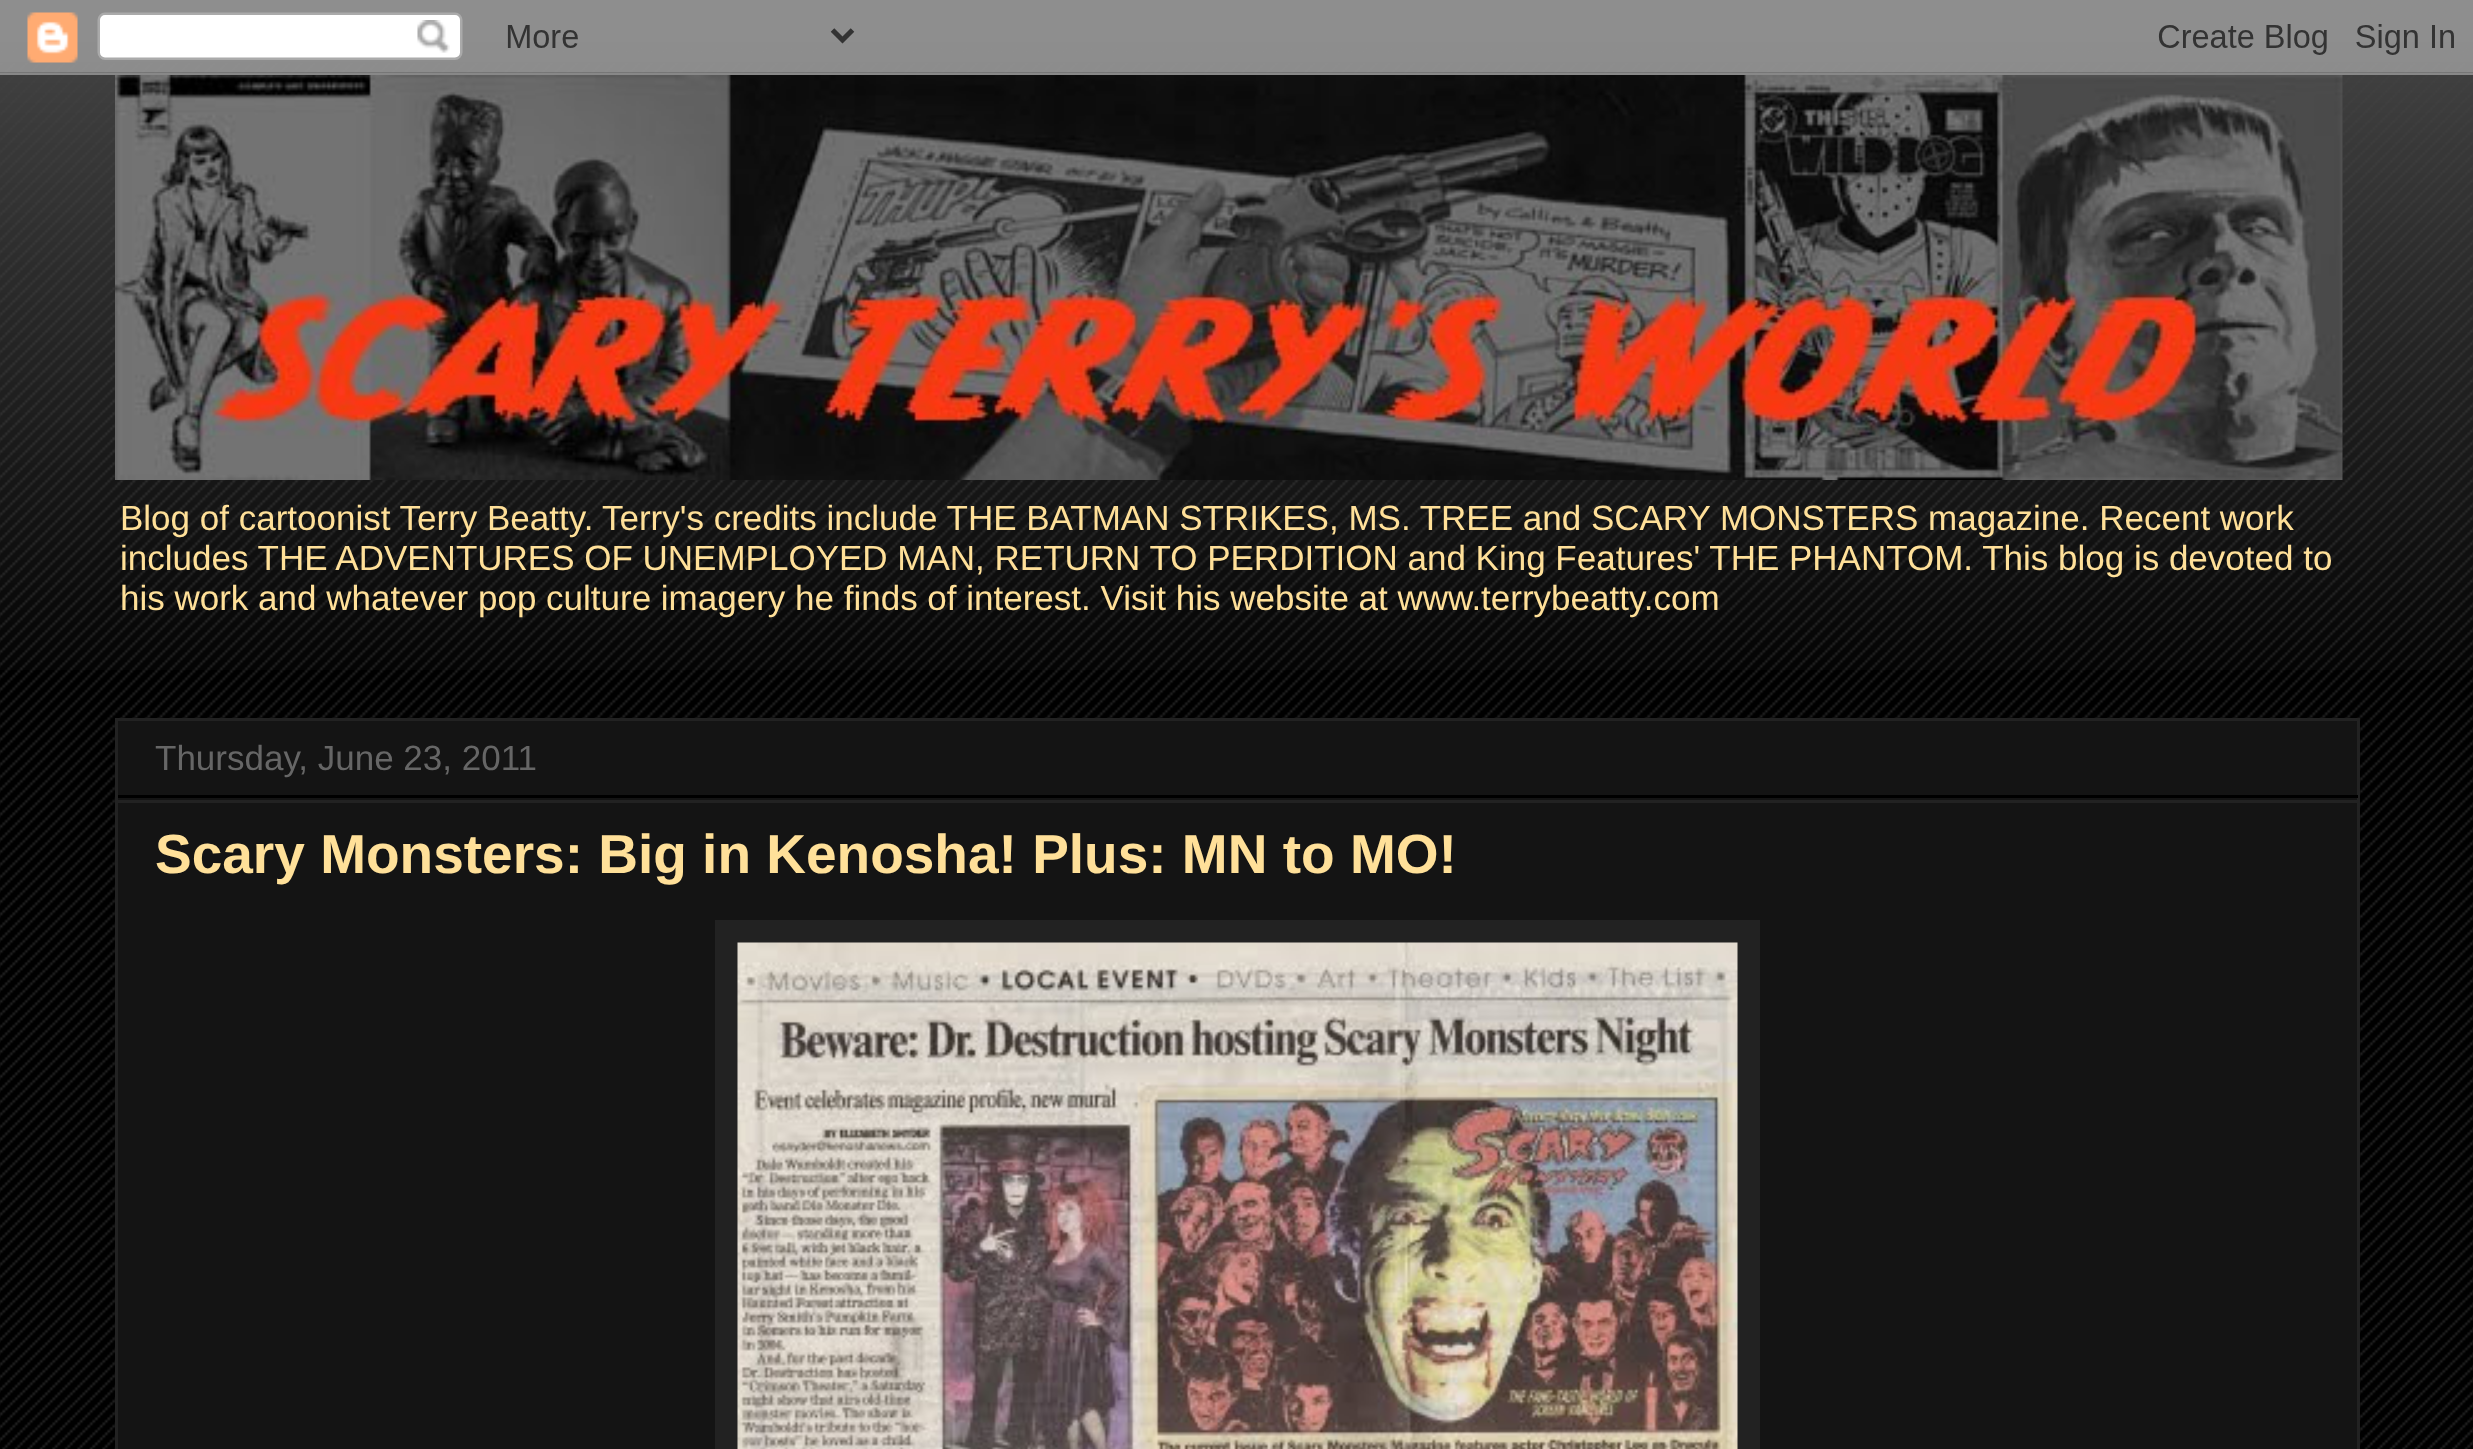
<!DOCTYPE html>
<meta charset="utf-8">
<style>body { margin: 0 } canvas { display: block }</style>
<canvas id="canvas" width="2473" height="1449"></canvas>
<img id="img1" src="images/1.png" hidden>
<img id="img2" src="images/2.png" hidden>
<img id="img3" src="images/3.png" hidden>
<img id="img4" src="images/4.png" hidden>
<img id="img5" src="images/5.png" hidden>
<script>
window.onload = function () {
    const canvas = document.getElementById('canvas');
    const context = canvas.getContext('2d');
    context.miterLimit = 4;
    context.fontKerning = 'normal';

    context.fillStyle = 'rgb(0, 0, 0)';
    context.fillRect(0, 0, 2473, 1449);
    context.drawImage(document.getElementById('img1'), 0, 33, 2473, 1416);
    context.drawImage(document.getElementById('img2'), 0, 0, 2473, 670);
    context.drawImage(document.getElementById('img3'), 0, 0, 2473, 75);
    context.drawImage(document.getElementById('img4'), 115, 75, 2228, 405);
    context.fillStyle = 'rgb(20, 20, 20)';
    context.beginPath();
    context.rect(116.5, 719.5, 2242, 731);
    context.fill();
    context.strokeStyle = 'rgb(34, 34, 34)';
    context.lineWidth = 3;
    context.stroke();
    context.fillStyle = 'rgb(0, 0, 0)';
    context.fillRect(118, 795, 2240, 3);
    context.fillStyle = 'rgb(34, 34, 34)';
    context.fillRect(118, 800, 2240, 3);
    context.fillRect(715, 920, 1045, 529);
    context.drawImage(document.getElementById('img5'), 737, 942, 1001, 507);
    context.font = '35px Liberation Sans';
    context.fillStyle = 'rgb(255, 224, 153)';
    context.fillText('Blog of cartoonist Terry Beatty.', 120, 530);
    context.fillText('Terry\'s credits include THE BATMAN STRIKES, MS. TREE and SCARY MONSTERS magazine. Recent work', 602, 530);
    context.fillText('includes THE ADVENTURES OF UNEMPLOYED MAN, RETURN TO PERDITION and King Features\' THE PHANTOM. This blog is devoted to', 120, 570);
    context.fillText('his work and whatever pop culture imagery he finds of interest. Visit his website at www.terrybeatty.com', 120, 610);
    context.fillStyle = 'rgb(102, 102, 102)';
    context.fillText('Thursday, June 23, 2011', 155, 770);
    context.font = 'bold 55px Liberation Sans';
    context.fillStyle = 'rgb(255, 224, 153)';
    context.fillText('Scary Monsters: Big in Kenosha! Plus: MN to MO!', 155, 873);
};
</script>
